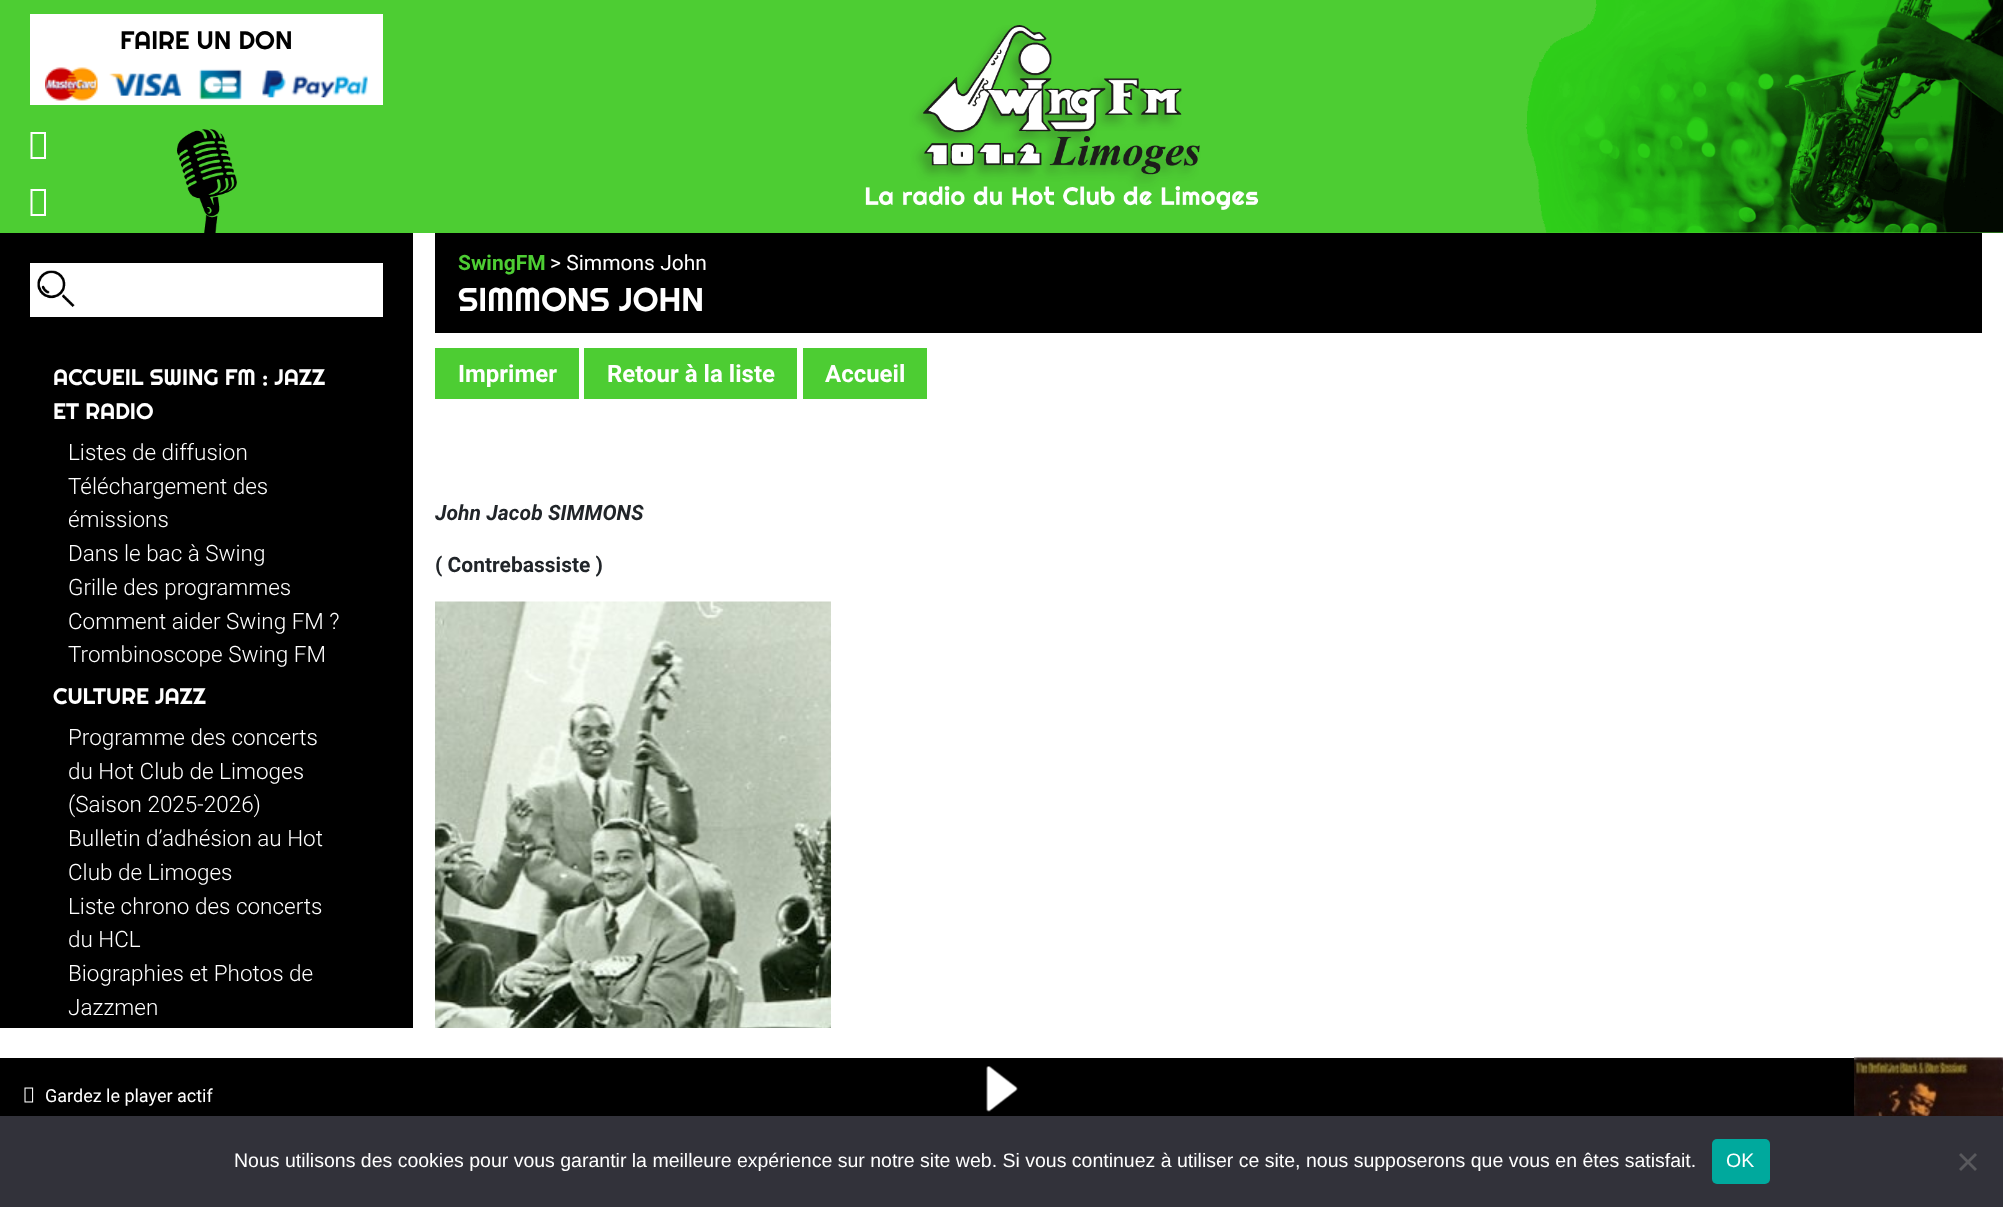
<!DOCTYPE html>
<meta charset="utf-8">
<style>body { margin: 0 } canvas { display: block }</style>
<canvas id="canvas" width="2003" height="1207"></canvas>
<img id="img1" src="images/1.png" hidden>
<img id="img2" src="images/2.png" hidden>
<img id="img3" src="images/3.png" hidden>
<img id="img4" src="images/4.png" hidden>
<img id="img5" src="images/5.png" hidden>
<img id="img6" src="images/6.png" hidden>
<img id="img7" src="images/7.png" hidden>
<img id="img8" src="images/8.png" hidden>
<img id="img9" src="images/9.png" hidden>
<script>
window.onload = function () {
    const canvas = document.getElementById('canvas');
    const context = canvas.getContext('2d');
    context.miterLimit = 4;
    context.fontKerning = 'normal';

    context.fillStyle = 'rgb(255, 255, 255)';
    context.fillRect(0, 0, 2003, 1207);
    context.fillStyle = 'rgb(77, 205, 51)';
    context.fillRect(0, 0, 2003, 233);
    context.drawImage(document.getElementById('img1'), 1526, 0, 477, 233);
    context.fillStyle = 'rgb(255, 255, 255)';
    context.fillRect(30, 14, 353, 91);
    context.drawImage(document.getElementById('img2'), 45, 67, 323, 34);
    context.beginPath();
    context.moveTo(30.5, 159);
    context.lineTo(30.5, 132);
    context.lineTo(46, 132);
    context.lineTo(46, 159);
    context.closePath();
    context.moveTo(32.5, 157);
    context.lineTo(44, 157);
    context.lineTo(44, 134);
    context.lineTo(32.5, 134);
    context.closePath();
    context.fill();
    context.beginPath();
    context.moveTo(30.5, 216);
    context.lineTo(30.5, 189);
    context.lineTo(46, 189);
    context.lineTo(46, 216);
    context.closePath();
    context.moveTo(32.5, 214);
    context.lineTo(44, 214);
    context.lineTo(44, 191);
    context.lineTo(32.5, 191);
    context.closePath();
    context.fill();
    context.drawImage(document.getElementById('img3'), 177, 129, 60, 104);
    context.drawImage(document.getElementById('img4'), 865, 25, 394, 185);
    context.fillStyle = 'rgb(0, 0, 0)';
    context.fillRect(0, 233, 413, 795);
    context.fillStyle = 'rgb(255, 255, 255)';
    context.fillRect(30, 263, 353, 54);
    context.drawImage(document.getElementById('img5'), 37, 270, 38, 37);
    context.fillStyle = 'rgb(0, 0, 0)';
    context.fillRect(435, 233, 1547, 100);
    context.fillStyle = 'rgb(77, 205, 51)';
    context.fillRect(435, 348, 144, 51);
    context.fillRect(584, 348, 213, 51);
    context.fillRect(803, 348, 124, 51);
    context.drawImage(document.getElementById('img6'), 435, 601, 396, 427);
    context.fillStyle = 'rgb(0, 0, 0)';
    context.fillRect(0, 1058, 1854, 58);
    context.drawImage(document.getElementById('img7'), 24, 1087, 10, 16);
    context.drawImage(document.getElementById('img8'), 986, 1066, 32, 46);
    context.drawImage(document.getElementById('img9'), 1854, 1057, 149, 59);
    context.fillStyle = 'rgb(50, 50, 58)';
    context.fillRect(0, 1116, 2003, 91);
    context.fillStyle = 'rgb(0, 169, 157)';
    context.beginPath();
    context.roundRect(1712, 1139, 58, 45, 5);
    context.fill();
    context.fillStyle = 'rgb(89, 89, 93)';
    context.beginPath();
    context.moveTo(1975, 1153);
    context.lineTo(1977, 1155);
    context.lineTo(1961, 1171);
    context.lineTo(1959, 1169);
    context.closePath();
    context.fill();
    context.beginPath();
    context.moveTo(1959, 1155);
    context.lineTo(1961, 1153);
    context.lineTo(1977, 1169);
    context.lineTo(1975, 1171);
    context.closePath();
    context.fill();
    context.font = '25.5px Righteous';
    context.fillStyle = 'rgb(0, 0, 0)';
    context.fillText('FAIRE UN DON', 120, 49);
    context.font = '22.5px Righteous';
    context.fillStyle = 'rgb(255, 255, 255)';
    context.fillText('ACCUEIL SWING FM : JAZZ', 53, 385);
    context.fillText('ET RADIO', 53, 419);
    context.font = '300 22.5px Roboto';
    context.fillText('Listes de diffusion', 68, 460);
    context.fillText('Téléchargement des', 68, 494);
    context.fillText('émissions', 68, 527);
    context.fillText('Dans le bac à Swing', 68, 561);
    context.fillText('Grille des programmes', 68, 595);
    context.fillText('Comment aider Swing FM ?', 68, 629);
    context.fillText('Trombinoscope Swing FM', 68, 662);
    context.font = '22.5px Righteous';
    context.fillText('CULTURE JAZZ', 53, 704);
    context.font = '300 22.5px Roboto';
    context.fillText('Programme des concerts', 68, 745);
    context.fillText('du Hot Club de Limoges', 68, 779);
    context.fillText('(Saison 2025-2026)', 68, 812);
    context.fillText('Bulletin d’adhésion au Hot', 68, 846);
    context.fillText('Club de Limoges', 68, 880);
    context.fillText('Liste chrono des concerts', 68, 914);
    context.fillText('du HCL', 68, 947);
    context.fillText('Biographies et Photos de', 68, 981);
    context.fillText('Jazzmen', 68, 1015);
    context.font = 'bold 21px Roboto';
    context.fillStyle = 'rgb(77, 205, 51)';
    context.fillText('SwingFM', 458, 270);
    context.font = '21px Roboto';
    context.fillStyle = 'rgb(255, 255, 255)';
    context.fillText('> Simmons John', 550, 270);
    context.font = '33px Righteous';
    context.fillText('SIMMONS JOHN', 458, 311);
    context.font = 'bold 24px Roboto';
    context.fillText('Imprimer', 458, 382);
    context.fillText('Retour à la liste', 607, 382);
    context.fillText('Accueil', 825, 382);
    context.font = 'italic bold 21px Roboto';
    context.fillStyle = 'rgb(33, 37, 41)';
    context.fillText('John Jacob SIMMONS', 435, 520);
    context.font = 'bold 21px Roboto';
    context.fillText('( Contrebassiste )', 435, 572);
    context.font = '18px Roboto';
    context.fillStyle = 'rgb(255, 255, 255)';
    context.fillText('Gardez le player actif', 45, 1102);
    context.font = '19.5px Liberation Sans';
    context.fillText('Nous utilisons des cookies pour vous garantir la meilleure expérience sur notre site web. Si vous continuez à utiliser ce site, nous supposerons que vous en êtes satisfait.', 234, 1167);
    context.fillText('OK', 1726, 1167);
};
</script>
